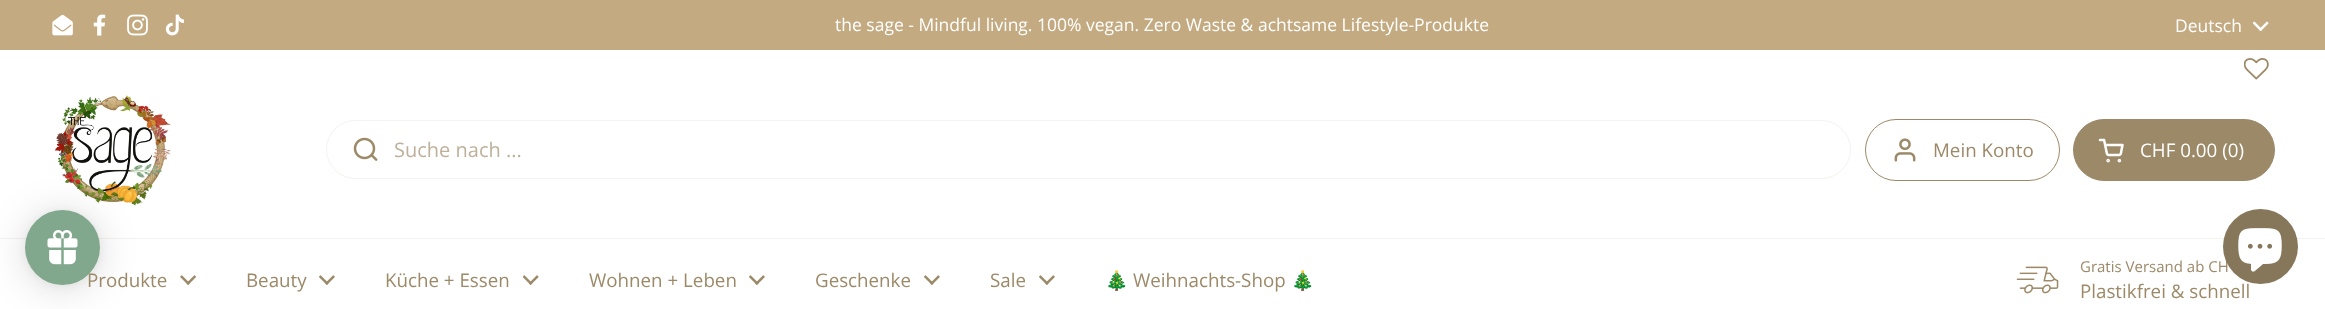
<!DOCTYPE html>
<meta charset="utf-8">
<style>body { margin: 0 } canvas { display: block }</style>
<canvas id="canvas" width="2325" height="309"></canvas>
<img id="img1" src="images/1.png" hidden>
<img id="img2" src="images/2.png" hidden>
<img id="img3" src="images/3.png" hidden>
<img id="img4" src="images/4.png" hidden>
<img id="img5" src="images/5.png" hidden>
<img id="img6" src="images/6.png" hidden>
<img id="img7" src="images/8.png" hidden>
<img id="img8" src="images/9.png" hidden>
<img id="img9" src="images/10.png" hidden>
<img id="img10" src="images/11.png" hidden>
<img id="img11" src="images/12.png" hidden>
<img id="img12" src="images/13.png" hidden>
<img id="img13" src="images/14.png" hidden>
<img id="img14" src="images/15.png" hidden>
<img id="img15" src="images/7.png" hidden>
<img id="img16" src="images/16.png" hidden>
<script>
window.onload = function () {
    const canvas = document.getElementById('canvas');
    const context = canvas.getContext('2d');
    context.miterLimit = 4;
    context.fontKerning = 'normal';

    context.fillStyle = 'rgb(255, 255, 255)';
    context.fillRect(0, 0, 2325, 309);
    context.fillStyle = 'rgb(195, 170, 129)';
    context.fillRect(0, 0, 2325, 50);
    context.drawImage(document.getElementById('img1'), 52, 14, 21, 22);
    context.drawImage(document.getElementById('img2'), 93, 14, 13, 22);
    context.drawImage(document.getElementById('img3'), 127, 14, 21, 22);
    context.drawImage(document.getElementById('img4'), 165, 14, 19, 22);
    context.drawImage(document.getElementById('img5'), 2253, 21, 16, 10);
    context.drawImage(document.getElementById('img6'), 2244, 58, 25, 22);
    context.fillStyle = 'rgb(245, 243, 240)';
    context.fillRect(0, 238, 2325, 1);
    context.drawImage(document.getElementById('img7'), 54, 95, 117, 111);
    context.fillStyle = 'rgba(0, 0, 0, 0.15)';
    context.filter = 'blur(19px)';
    context.beginPath();
    context.roundRect(25, 213, 75, 75, 37.5);
    context.fill();
    context.filter = 'none';
    context.fillStyle = 'rgba(0, 0, 0, 0.05)';
    context.filter = 'blur(4px)';
    context.beginPath();
    context.roundRect(25, 211, 75, 75, 37.5);
    context.fill();
    context.filter = 'none';
    context.beginPath();
    context.roundRect(326.5, 120.5, 1524, 58, 29);
    context.strokeStyle = 'rgb(245, 243, 240)';
    context.stroke();
    context.drawImage(document.getElementById('img8'), 353, 137, 25, 24);
    context.beginPath();
    context.roundRect(1865.5, 119.5, 194, 61, 30.5);
    context.strokeStyle = 'rgb(156, 137, 104)';
    context.stroke();
    context.drawImage(document.getElementById('img9'), 1894, 138, 22, 24);
    context.fillStyle = 'rgb(156, 137, 104)';
    context.beginPath();
    context.roundRect(2073.5, 119.5, 201, 61, 30.5);
    context.fill();
    context.stroke();
    context.drawImage(document.getElementById('img10'), 2098, 138, 26, 25);
    context.drawImage(document.getElementById('img11'), 180, 275, 16, 10);
    context.drawImage(document.getElementById('img12'), 319, 275, 16, 10);
    context.drawImage(document.getElementById('img13'), 523, 275, 16, 10);
    context.drawImage(document.getElementById('img12'), 749, 275, 16, 10);
    context.drawImage(document.getElementById('img12'), 924, 275, 16, 10);
    context.drawImage(document.getElementById('img12'), 1039, 275, 16, 10);
    context.drawImage(document.getElementById('img14'), 2016, 266, 43, 28);
    context.font = '17.5px Open Sans';
    context.fillStyle = 'rgb(255, 255, 255)';
    context.fillText('the sage - Mindful living. 100% vegan. Zero Waste & achtsame Lifestyle-Produkte', 835, 31);
    context.fillText('Deutsch', 2175, 32);
    context.font = '20px Open Sans';
    context.fillStyle = 'rgb(190, 177, 155)';
    context.fillText('Suche nach ...', 394, 157);
    context.font = '18.75px Open Sans';
    context.fillStyle = 'rgb(156, 137, 104)';
    context.fillText('Mein Konto', 1933, 157);
    context.fillStyle = 'rgb(255, 255, 255)';
    context.fillText('CHF 0.00 (0)', 2140, 157);
    context.fillStyle = 'rgb(156, 137, 104)';
    context.fillText('Produkte', 87, 287);
    context.fillStyle = 'rgb(129, 168, 141)';
    context.beginPath();
    context.arc(62.5, 247.5, 37.5, 0, 2 * Math.PI);
    context.fill();
    context.drawImage(document.getElementById('img15'), 47, 230, 31, 35);
    context.fillStyle = 'rgb(156, 137, 104)';
    context.fillText('Beauty', 246, 287);
    context.fillText('Küche + Essen', 385, 287);
    context.fillText('Wohnen + Leben', 589, 287);
    context.fillText('Geschenke', 815, 287);
    context.fillText('Sale', 990, 287);
    context.font = '18.75px Noto Color Emoji';
    context.fillText('🎄', 1105, 287);
    context.font = '18.75px Open Sans';
    context.fillText('Weihnachts-Shop', 1133, 287);
    context.font = '18.75px Noto Color Emoji';
    context.fillText('🎄', 1291, 287);
    context.font = '15px Open Sans';
    context.fillText('Gratis Versand ab CH', 2080, 272);
    context.font = '18.75px Open Sans';
    context.fillText('Plastikfrei & schnell', 2080, 298);
    context.fillStyle = 'rgb(134, 118, 90)';
    context.beginPath();
    context.arc(2260.5, 246.5, 37.5, 0, 2 * Math.PI);
    context.fill();
    context.drawImage(document.getElementById('img16'), 2238, 228, 44, 44);
};
</script>
